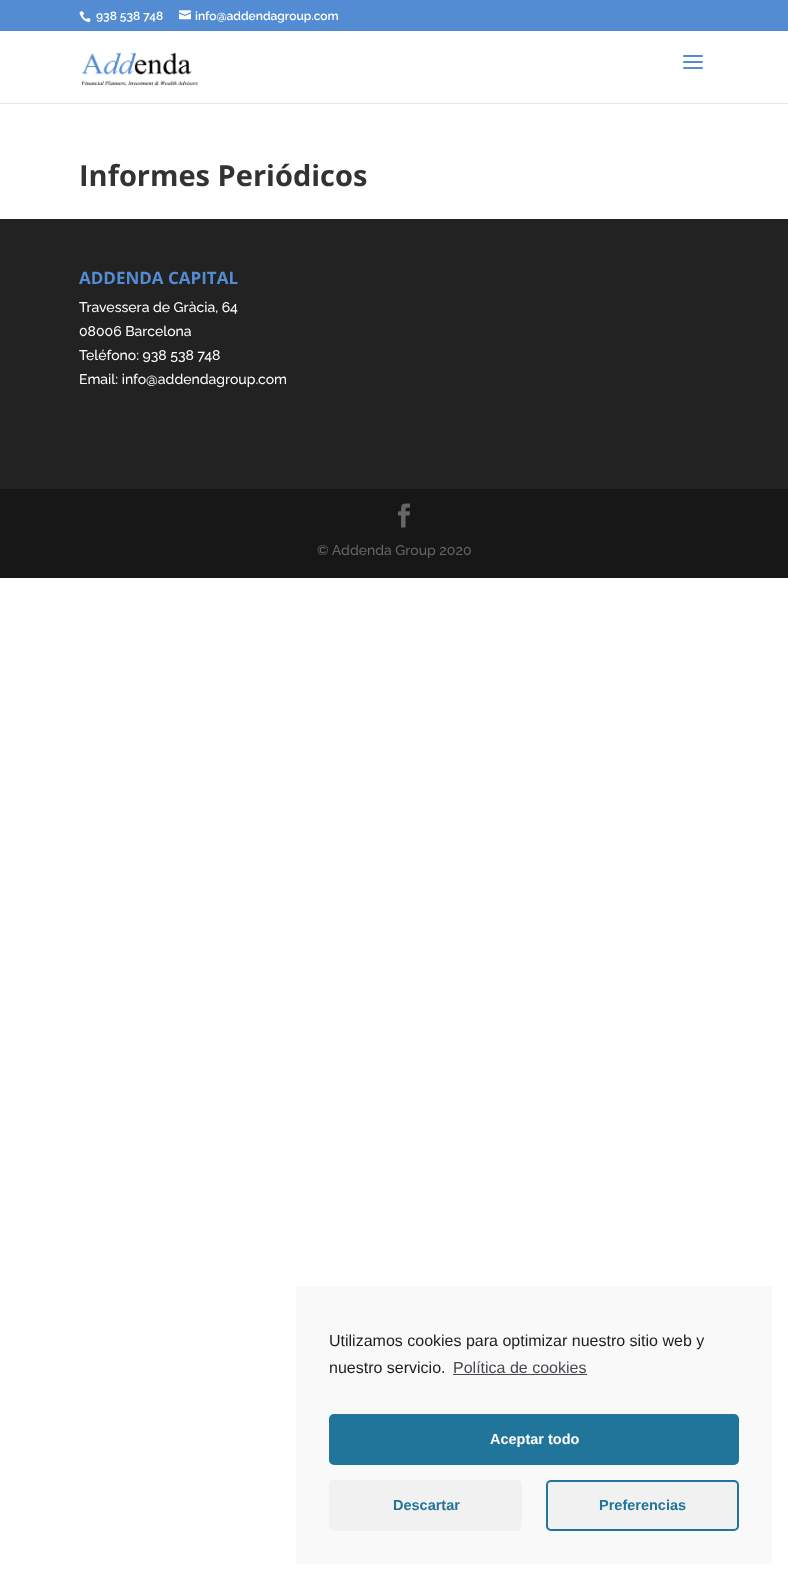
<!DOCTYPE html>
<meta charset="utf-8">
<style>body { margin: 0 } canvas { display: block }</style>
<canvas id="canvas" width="788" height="1580"></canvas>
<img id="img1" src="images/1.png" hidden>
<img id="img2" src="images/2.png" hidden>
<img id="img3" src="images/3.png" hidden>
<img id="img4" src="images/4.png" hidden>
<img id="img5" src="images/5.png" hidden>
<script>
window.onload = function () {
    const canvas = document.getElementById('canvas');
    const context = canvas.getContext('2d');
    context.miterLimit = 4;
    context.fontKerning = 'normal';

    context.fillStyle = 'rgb(255, 255, 255)';
    context.fillRect(0, 0, 788, 1580);
    context.fillStyle = 'rgb(83, 140, 211)';
    context.fillRect(0, 0, 788, 31);
    context.drawImage(document.getElementById('img1'), 79, 11, 12, 12);
    context.drawImage(document.getElementById('img2'), 179, 10, 12, 10);
    context.fillStyle = 'rgb(230, 230, 230)';
    context.fillRect(0, 103, 788, 1);
    context.drawImage(document.getElementById('img3'), 82, 52, 116, 34);
    context.drawImage(document.getElementById('img4'), 683, 55, 20, 14);
    context.fillStyle = 'rgb(34, 34, 34)';
    context.fillRect(0, 219, 788, 270);
    context.fillStyle = 'rgb(23, 23, 23)';
    context.fillRect(0, 489, 788, 89);
    context.drawImage(document.getElementById('img5'), 398, 503, 12, 25);
    context.fillStyle = 'rgb(249, 249, 249)';
    context.fillRect(296, 1286, 476, 278);
    context.fillStyle = 'rgb(70, 74, 78)';
    context.fillRect(453, 1374, 134, 1);
    context.fillStyle = 'rgb(33, 117, 155)';
    context.beginPath();
    context.roundRect(330, 1415, 408, 49, 4);
    context.fill();
    context.strokeStyle = 'rgb(33, 117, 155)';
    context.lineWidth = 2;
    context.stroke();
    context.fillStyle = 'rgb(241, 241, 241)';
    context.beginPath();
    context.roundRect(329, 1480, 193, 51, 5);
    context.fill();
    context.beginPath();
    context.roundRect(547, 1481, 191, 49, 4);
    context.fill();
    context.stroke();
    context.font = '600 12px Raleway';
    context.fillStyle = 'rgb(255, 255, 255)';
    context.fillText('938 538 748', 96, 20);
    context.fillText('info@addendagroup.com', 195, 20);
    context.font = 'bold 29px Open Sans';
    context.fillStyle = 'rgb(51, 51, 51)';
    context.fillText('Informes Periódicos', 79, 186);
    context.font = 'bold 17px Open Sans';
    context.fillStyle = 'rgb(83, 140, 211)';
    context.fillText('ADDENDA CAPITAL', 79, 284);
    context.font = '500 14px Raleway';
    context.fillStyle = 'rgb(255, 255, 255)';
    context.fillText('Travessera de Gràcia, 64', 79, 312);
    context.fillText('08006 Barcelona', 79, 336);
    context.fillText('Teléfono: 938 538 748', 79, 360);
    context.fillText('Email: info@addendagroup.com', 79, 384);
    context.fillStyle = 'rgb(102, 102, 102)';
    context.fillText('© Addenda Group 2020', 317, 555);
    context.font = '16px Liberation Sans';
    context.fillStyle = 'rgb(25, 30, 35)';
    context.fillText('Utilizamos cookies para optimizar nuestro sitio web y', 329, 1346);
    context.fillText('nuestro servicio.', 329, 1373);
    context.fillStyle = 'rgb(70, 74, 78)';
    context.fillText('Política de cookies', 453, 1373);
    context.font = 'bold 14.5px Liberation Sans';
    context.fillStyle = 'rgb(255, 255, 255)';
    context.fillText('Aceptar todo', 490, 1444);
    context.fillStyle = 'rgb(33, 117, 155)';
    context.fillText('Descartar', 393, 1510);
    context.fillText('Preferencias', 599, 1510);
};
</script>
